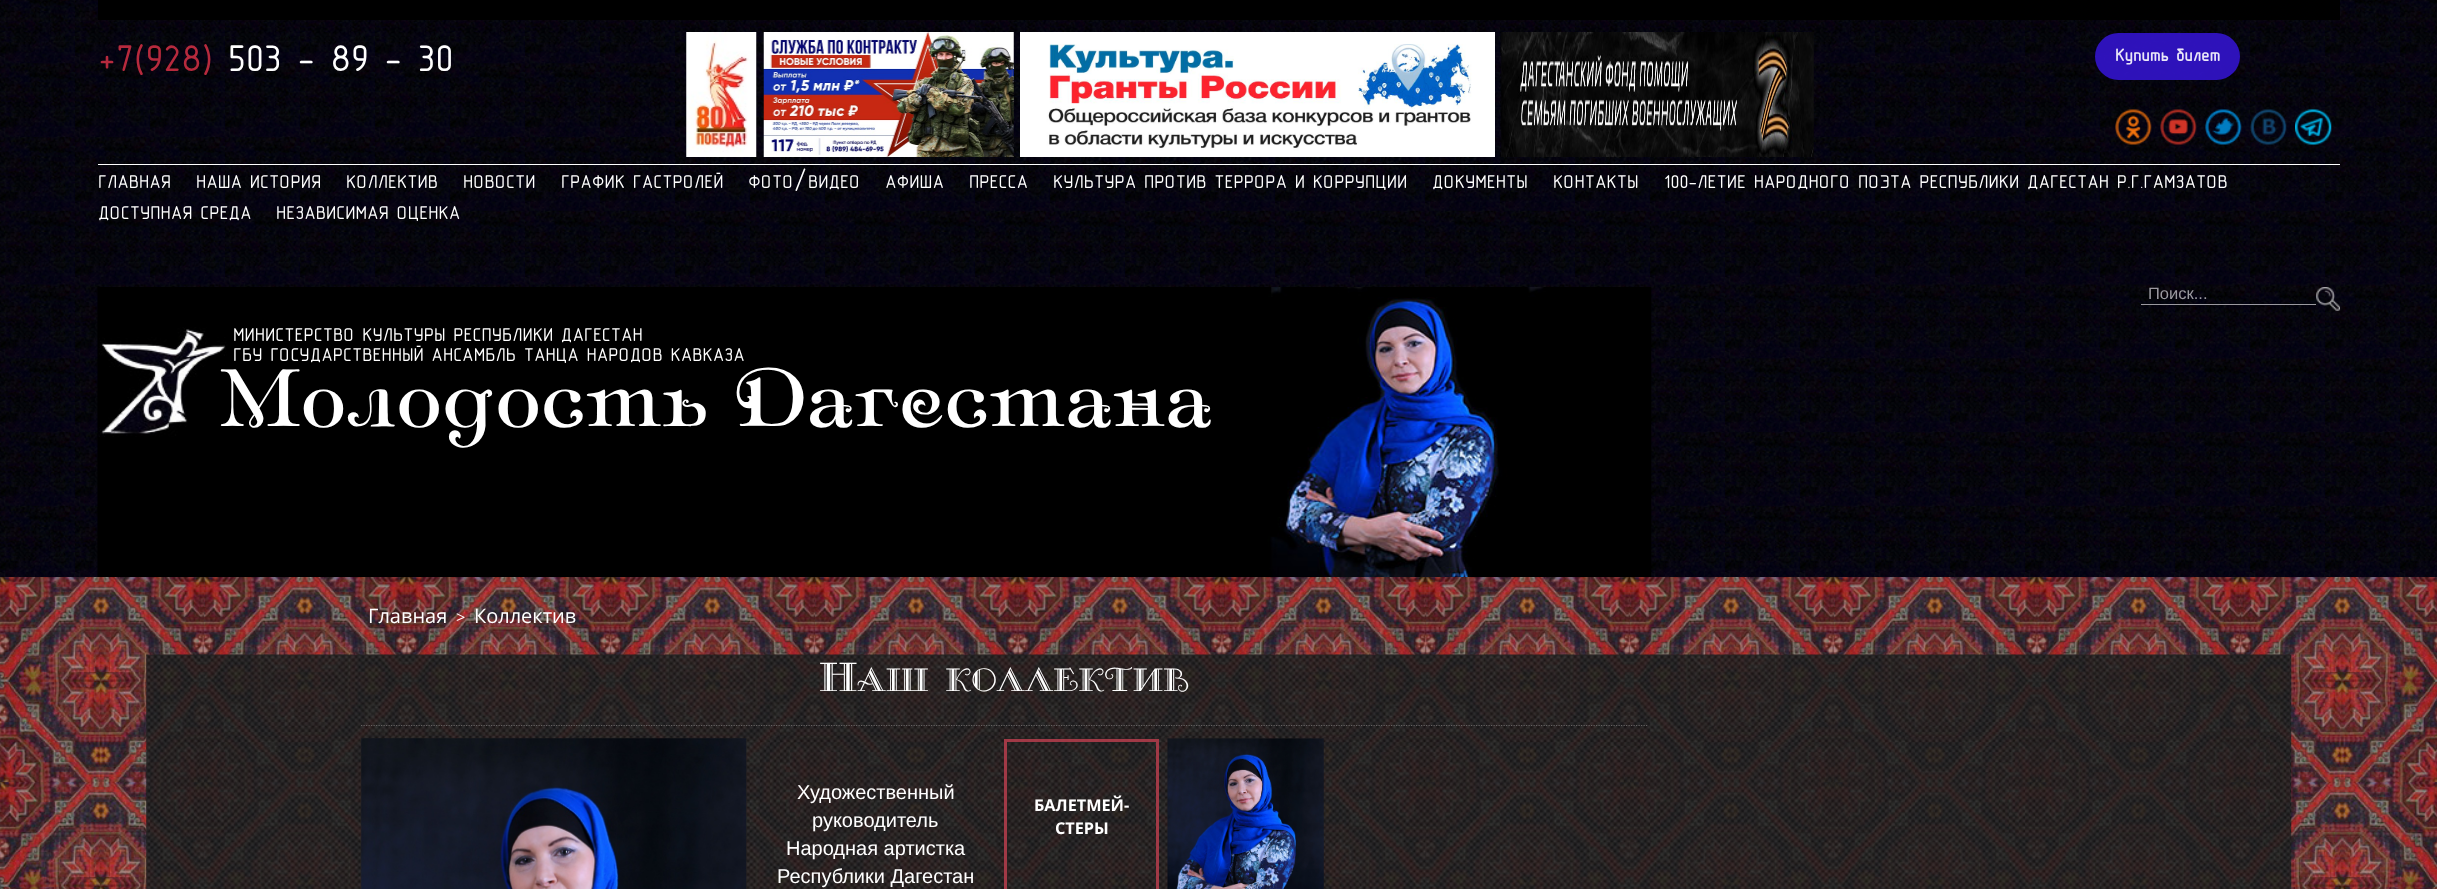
<!DOCTYPE html>
<meta charset="utf-8">
<style>body { margin: 0 } canvas { display: block }</style>
<canvas id="canvas" width="2437" height="889"></canvas>
<img id="img1" src="images/1.png" hidden>
<img id="img2" src="images/2.png" hidden>
<img id="img3" src="images/3.png" hidden>
<img id="img4" src="images/4.png" hidden>
<img id="img5" src="images/5.png" hidden>
<img id="img6" src="images/6.png" hidden>
<img id="img7" src="images/7.png" hidden>
<img id="img8" src="images/8.png" hidden>
<img id="img9" src="images/9.png" hidden>
<img id="img10" src="images/10.png" hidden>
<img id="img11" src="images/11.png" hidden>
<img id="img12" src="images/12.png" hidden>
<img id="img13" src="images/13.png" hidden>
<img id="img14" src="images/14.png" hidden>
<img id="img15" src="images/15.png" hidden>
<img id="img16" src="images/16.png" hidden>
<script>
window.onload = function () {
    const canvas = document.getElementById('canvas');
    const context = canvas.getContext('2d');
    context.miterLimit = 4;
    context.fontKerning = 'normal';

    context.fillStyle = 'rgb(255, 255, 255)';
    context.fillRect(0, 0, 2437, 889);
    context.drawImage(document.getElementById('img1'), 0, 0, 2437, 577);
    context.drawImage(document.getElementById('img2'), 686, 32, 71, 125);
    context.drawImage(document.getElementById('img3'), 763, 32, 251, 125);
    context.drawImage(document.getElementById('img4'), 1020, 32, 475, 125);
    context.drawImage(document.getElementById('img5'), 1501, 32, 313, 125);
    context.fillStyle = 'rgb(0, 0, 0)';
    context.fillRect(98, 0, 2242, 20);
    context.fillStyle = 'rgba(51, 20, 205, 0.9)';
    context.beginPath();
    context.roundRect(2095, 33, 145, 47, 23.5);
    context.fill();
    context.drawImage(document.getElementById('img6'), 2115, 109, 37, 36);
    context.drawImage(document.getElementById('img7'), 2160, 109, 37, 36);
    context.drawImage(document.getElementById('img8'), 2205, 109, 37, 36);
    context.drawImage(document.getElementById('img9'), 2250, 109, 37, 36);
    context.drawImage(document.getElementById('img10'), 2295, 109, 37, 36);
    context.fillStyle = 'rgb(255, 255, 255)';
    context.fillRect(98, 164, 2242, 1);
    context.fillStyle = 'rgb(155, 153, 160)';
    context.fillRect(2141, 304, 175, 1);
    context.drawImage(document.getElementById('img11'), 2316, 287, 24, 24);
    context.drawImage(document.getElementById('img12'), 97, 287, 1555, 290);
    context.drawImage(document.getElementById('img13'), 0, 577, 2437, 312);
    context.drawImage(document.getElementById('img14'), 146, 654, 2146, 235);
    context.beginPath();
    context.moveTo(361, 725.5);
    context.lineTo(1647.5, 725.5);
    context.strokeStyle = 'rgb(100, 97, 97)';
    context.lineWidth = 1.2;
    context.setLineDash([1.25, 1.25]);
    context.stroke();
    context.drawImage(document.getElementById('img15'), 361, 738, 386, 151);
    context.strokeStyle = 'rgb(161, 57, 70)';
    context.lineWidth = 3;
    context.setLineDash([]);
    context.strokeRect(1005.5, 740.5, 152, 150);
    context.drawImage(document.getElementById('img16'), 1167, 738, 157, 151);
    context.font = '37.5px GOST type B';
    context.fillStyle = 'rgb(182, 42, 61)';
    context.fillText('+7(928)', 98, 71);
    context.fillStyle = 'rgb(255, 255, 255)';
    context.fillText('503 - 89 - 30', 228, 71);
    context.font = 'bold 17.5px GOST type B';
    context.fillStyle = 'rgb(234, 231, 248)';
    context.fillText('Купить билет', 2115, 61);
    context.font = '18.75px GOST type B';
    context.fillStyle = 'rgb(255, 255, 255)';
    context.fillText('ГЛАВНАЯ', 98, 188);
    context.fillText('НАША ИСТОРИЯ', 196, 188);
    context.fillText('КОЛЛЕКТИВ', 346, 188);
    context.fillText('НОВОСТИ', 463, 188);
    context.fillText('ГРАФИК ГАСТРОЛЕЙ', 561, 188);
    context.fillText('ФОТО', 748, 188);
    context.font = '22px GOST type B';
    context.fillText('/', 794, 188);
    context.font = '18.75px GOST type B';
    context.fillText('ВИДЕО', 808, 188);
    context.fillText('АФИША', 885, 188);
    context.fillText('ПРЕССА', 969, 188);
    context.fillText('КУЛЬТУРА ПРОТИВ ТЕРРОРА И КОРРУПЦИИ', 1053, 188);
    context.fillText('ДОКУМЕНТЫ', 1432, 188);
    context.fillText('КОНТАКТЫ', 1553, 188);
    context.fillText('100-ЛЕТИЕ НАРОДНОГО ПОЭТА РЕСПУБЛИКИ ДАГЕСТАН Р.Г.ГАМЗАТОВ', 1664, 188);
    context.fillText('ДОСТУПНАЯ СРЕДА', 98, 219);
    context.fillText('НЕЗАВИСИМАЯ ОЦЕНКА', 276, 219);
    context.font = '16.5px Liberation Sans';
    context.fillStyle = 'rgb(155, 153, 160)';
    context.fillText('Поиск...', 2148, 299);
    context.font = '18.75px GOST type B';
    context.fillStyle = 'rgb(255, 255, 255)';
    context.fillText('МИНИСТЕРСТВО КУЛЬТУРЫ РЕСПУБЛИКИ ДАГЕСТАН', 233, 341);
    context.fillText('ГБУ ГОСУДАРСТВЕННЫЙ АНСАМБЛЬ ТАНЦА НАРОДОВ КАВКАЗА', 233, 361);
    context.font = '81.25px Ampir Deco';
    context.fillText('Молодость Дагестана', 220, 426);
    context.font = '20px Open Sans';
    context.fillText('Главная', 368, 623);
    context.font = '16.25px Open Sans';
    context.fillText('>', 456, 623);
    context.font = '20px Open Sans';
    context.fillText('Коллектив', 474, 623);
    context.font = '35px MonteCarlo';
    context.fillText('Наш коллектив', 819, 691);
    context.font = '20px Liberation Sans';
    context.fillText('Художественный', 797, 799);
    context.fillText('руководитель', 812, 827);
    context.fillText('Народная артистка', 786, 855);
    context.fillText('Республики Дагестан', 777, 883);
    context.font = 'bold 16.25px Open Sans';
    context.fillText('БАЛЕТМЕЙ-', 1034, 811);
    context.fillText('СТЕРЫ', 1055, 834);
};
</script>
